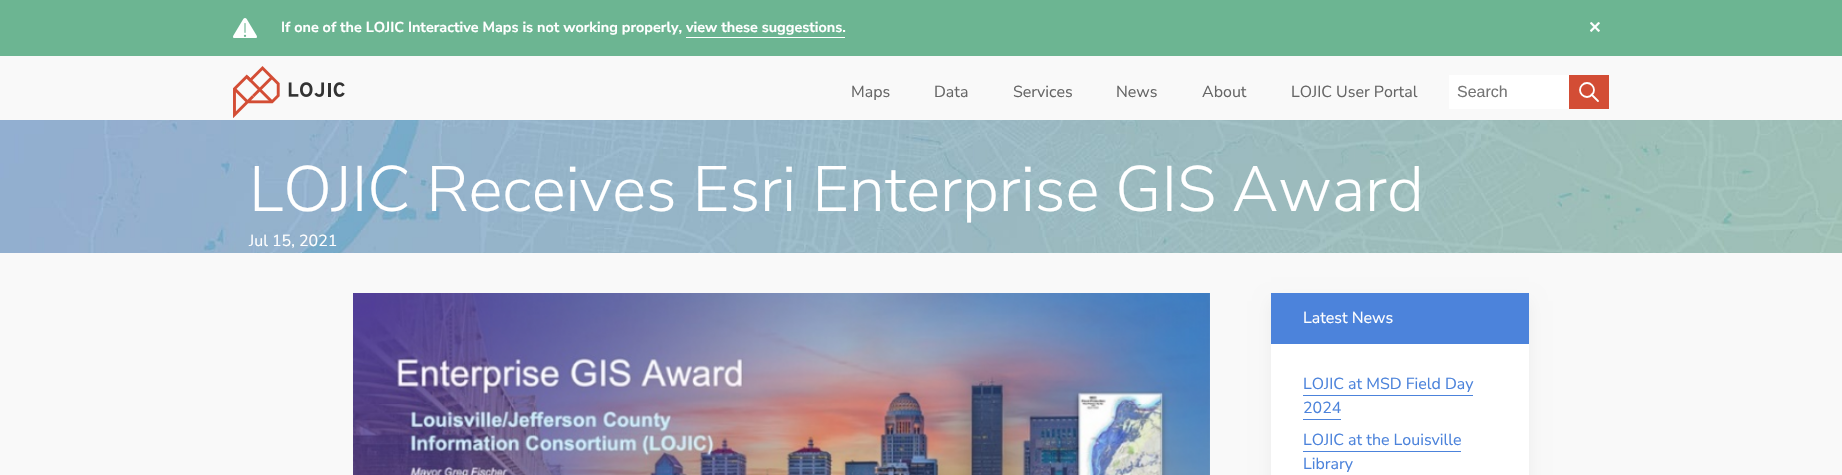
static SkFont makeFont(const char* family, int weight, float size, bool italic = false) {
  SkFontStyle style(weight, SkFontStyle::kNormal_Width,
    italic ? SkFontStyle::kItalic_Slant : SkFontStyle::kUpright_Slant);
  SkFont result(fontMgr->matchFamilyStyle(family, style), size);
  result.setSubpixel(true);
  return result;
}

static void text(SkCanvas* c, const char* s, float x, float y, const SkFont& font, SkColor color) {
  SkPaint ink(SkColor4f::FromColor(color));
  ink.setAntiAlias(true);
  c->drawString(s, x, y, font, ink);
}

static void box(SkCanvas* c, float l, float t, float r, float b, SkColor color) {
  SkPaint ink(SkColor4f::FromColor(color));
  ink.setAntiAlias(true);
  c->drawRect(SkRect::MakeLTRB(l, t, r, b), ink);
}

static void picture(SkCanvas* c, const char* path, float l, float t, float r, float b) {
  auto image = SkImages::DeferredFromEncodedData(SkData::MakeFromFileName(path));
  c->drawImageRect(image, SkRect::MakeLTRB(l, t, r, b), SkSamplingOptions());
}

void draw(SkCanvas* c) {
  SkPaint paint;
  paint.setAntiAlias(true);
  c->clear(0xfff9f9f9);
  box(c, 0, 0, 1842, 56, 0xff6cb592);
  picture(c, "img_01.png", 233, 18, 257, 38);
  SkFont face1 = makeFont("Nunito Sans", 700, 14.4f);
  text(c, "If one of the LOJIC Interactive Maps is not working properly,", 281, 32, face1, 0xffffffff);
  text(c, "view these suggestions.", 686, 32, face1, 0xffffffff);
  box(c, 686, 37, 845, 38, 0xffffffff);
  SkFont face2 = makeFont("DejaVu Sans", 700, 16);
  text(c, "✕", 1588, 33, face2, 0xffffffff);
  picture(c, "img_02.png", 233, 66, 345, 118);
  SkFont face3 = makeFont("Nunito Sans", 400, 16);
  text(c, "Maps", 851, 97, face3, 0xff666666);
  text(c, "Data", 934, 97, face3, 0xff666666);
  text(c, "Services", 1013, 97, face3, 0xff666666);
  text(c, "News", 1116, 97, face3, 0xff666666);
  text(c, "About", 1202, 97, face3, 0xff666666);
  text(c, "LOJIC User Portal", 1291, 97, face3, 0xff666666);
  box(c, 1449, 75, 1569, 109, 0xffffffff);
  SkFont face4 = makeFont("Liberation Sans", 400, 16);
  text(c, "Search", 1457, 97, face4, 0xff757575);
  box(c, 1569, 75, 1609, 109, 0xffd34d35);
  paint.setStyle(SkPaint::kStroke_Style);
  paint.setStrokeWidth(1.8f);
  paint.setColor(0xffffffff);
  c->drawCircle(1587, 90, 7, paint);
  paint.setStrokeCap(SkPaint::kRound_Cap);
  paint.setStrokeJoin(SkPaint::kRound_Join);
  c->drawPath(SkPathBuilder().moveTo(1591.5f, 94.5f).lineTo(1598, 101).detach(), paint);
  picture(c, "img_03.png", 0, 120, 1842, 253);
  SkFont face5 = makeFont("Nunito Sans", 300, 64);
  text(c, "LOJIC Receives Esri Enterprise GIS Award", 249, 211, face5, 0xffffffff);
  text(c, "Jul 15, 2021", 249, 246, face3, 0xffffffff);
  picture(c, "img_04.png", 353, 293, 1210, 475);
  paint.setStyle(SkPaint::kFill_Style);
  paint.setColor(0x0d000000);
  paint.setMaskFilter(SkMaskFilter::MakeBlur(kNormal_SkBlurStyle, 8));
  c->drawRect(SkRect::MakeLTRB(1271, 301, 1529, 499), paint);
  paint.setMaskFilter(nullptr);
  box(c, 1271, 344, 1529, 475, 0xffffffff);
  box(c, 1271, 293, 1529, 344, 0xff4c83db);
  text(c, "Latest News", 1303, 323, face3, 0xffffffff);
  text(c, "LOJIC at MSD Field Day", 1303, 389, face3, 0xff4c83db);
  box(c, 1303, 395, 1473, 396, 0xff4c83db);
  text(c, "2024", 1303, 413, face3, 0xff4c83db);
  box(c, 1303, 419, 1341, 420, 0xff4c83db);
  text(c, "LOJIC at the Louisville", 1303, 445, face3, 0xff4c83db);
  box(c, 1303, 451, 1461, 452, 0xff4c83db);
  text(c, "Library", 1303, 469, face3, 0xff4c83db);
}
